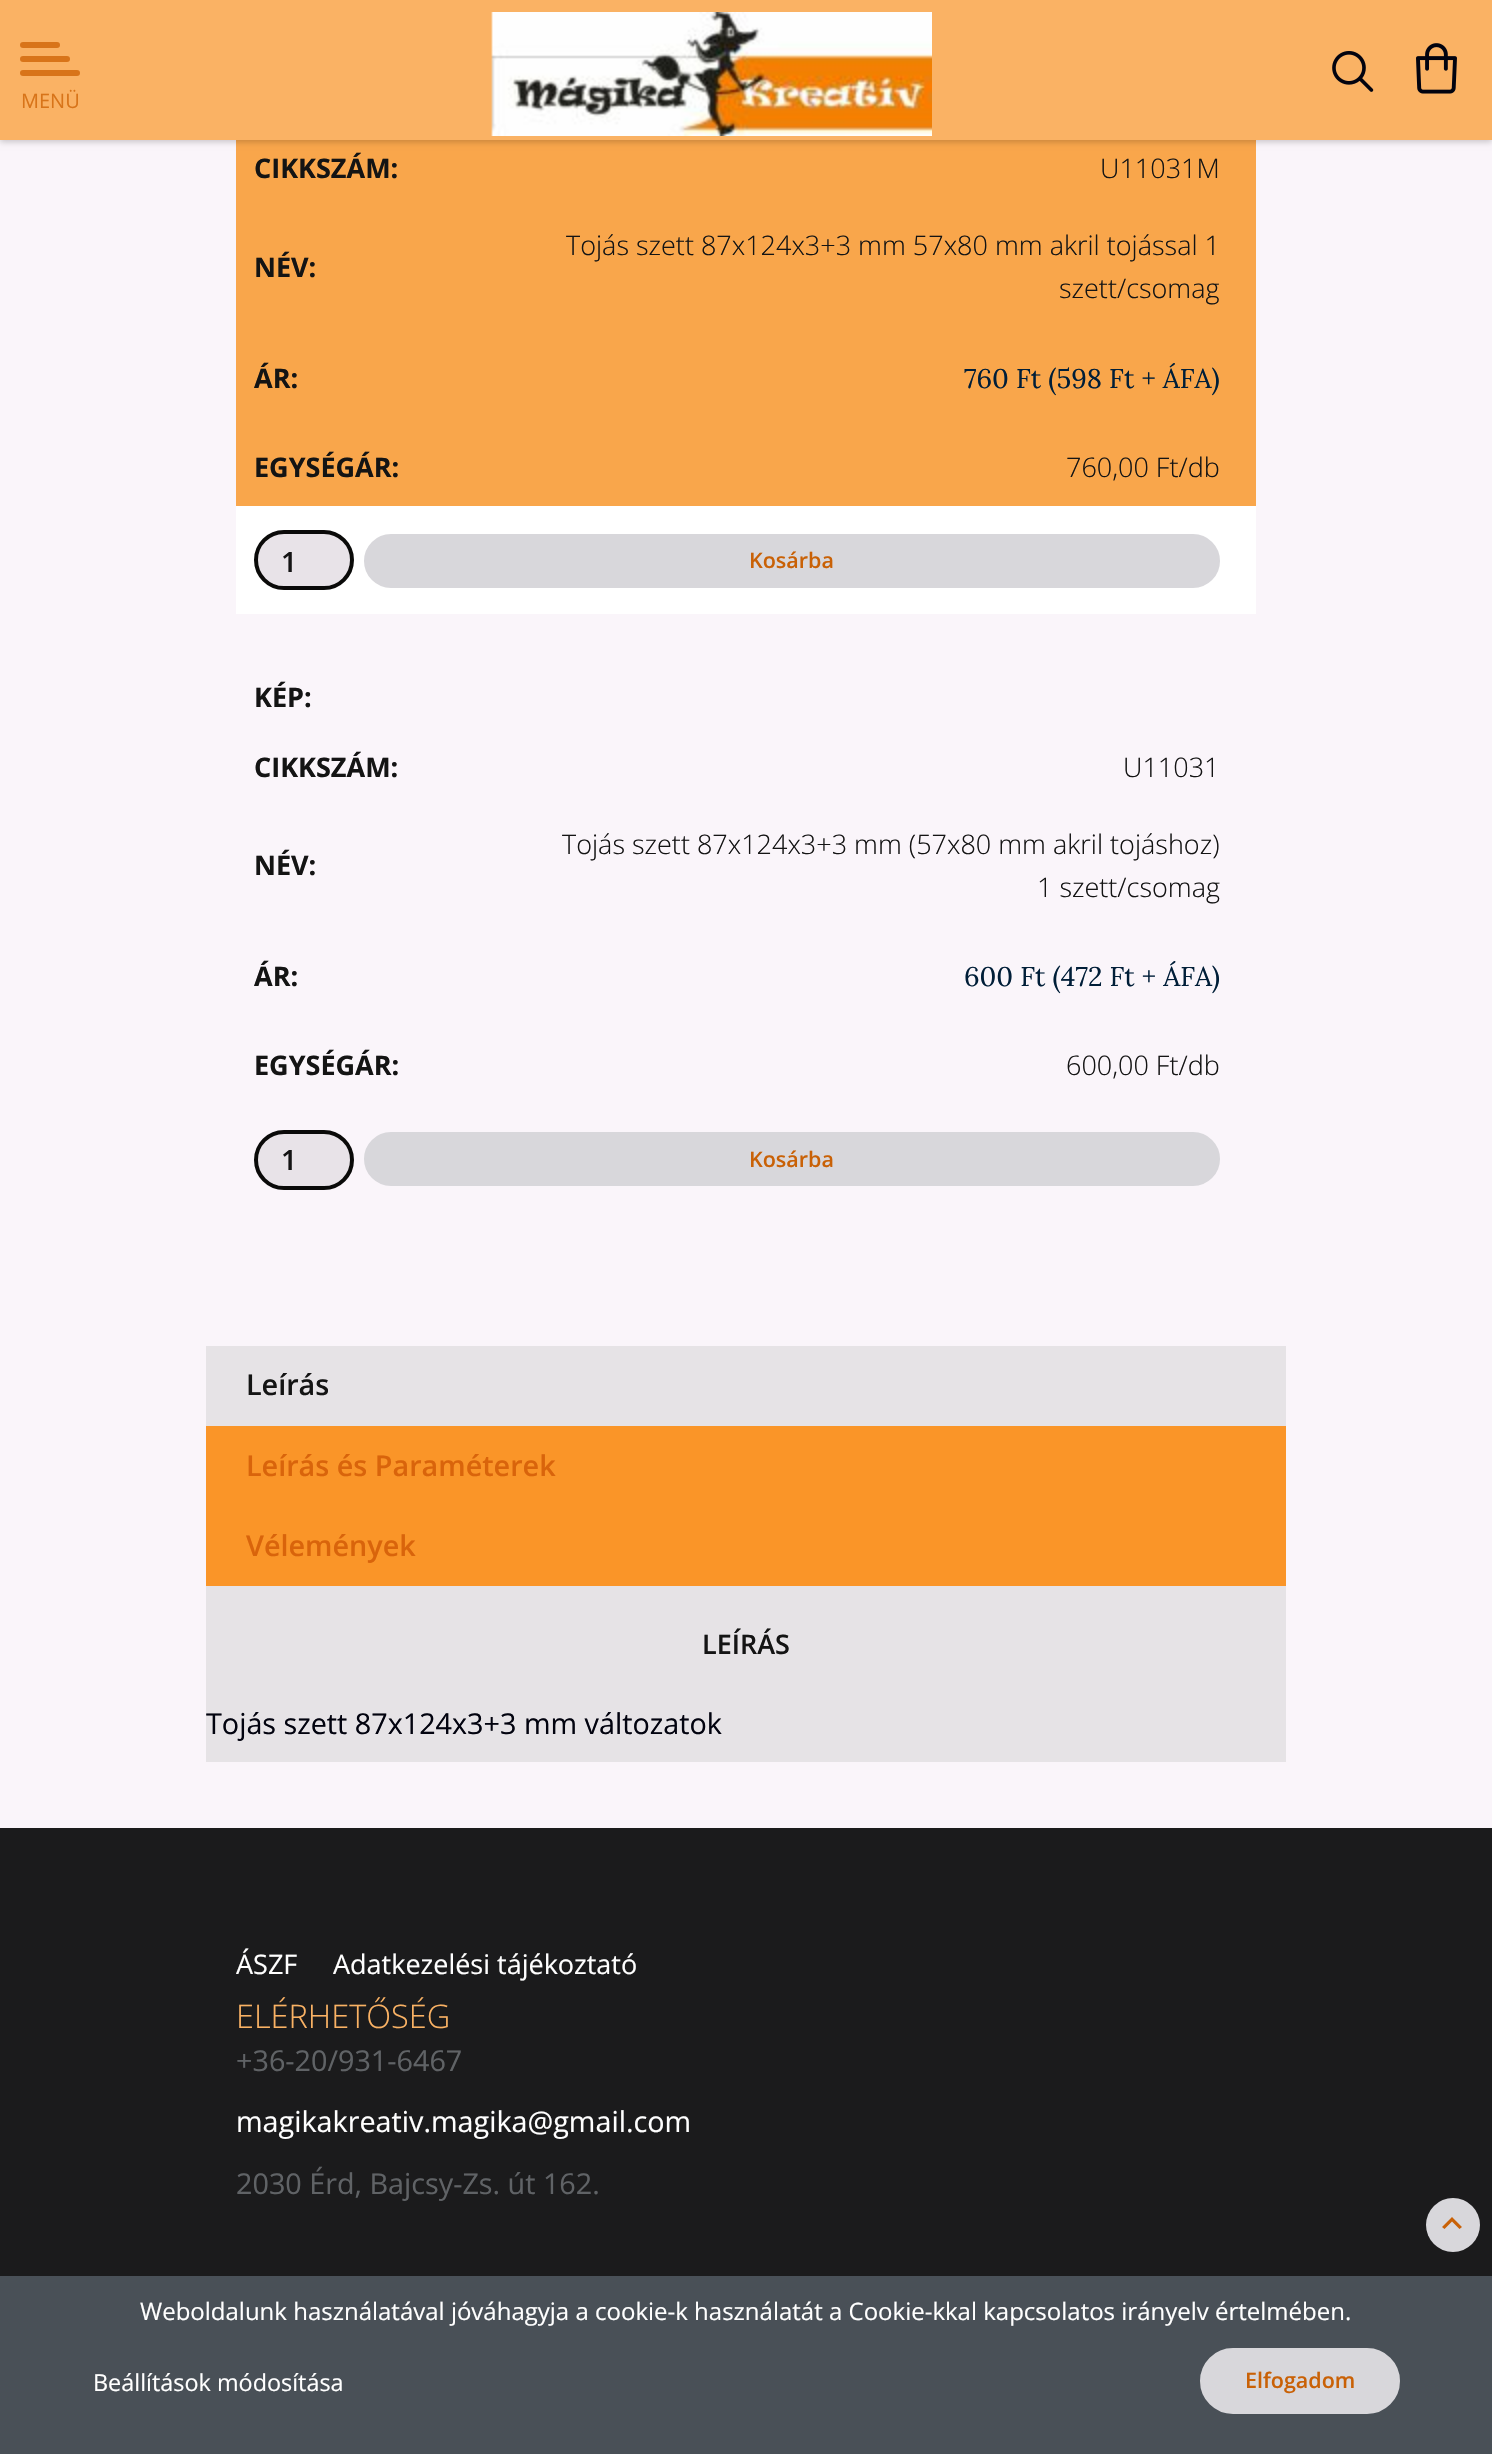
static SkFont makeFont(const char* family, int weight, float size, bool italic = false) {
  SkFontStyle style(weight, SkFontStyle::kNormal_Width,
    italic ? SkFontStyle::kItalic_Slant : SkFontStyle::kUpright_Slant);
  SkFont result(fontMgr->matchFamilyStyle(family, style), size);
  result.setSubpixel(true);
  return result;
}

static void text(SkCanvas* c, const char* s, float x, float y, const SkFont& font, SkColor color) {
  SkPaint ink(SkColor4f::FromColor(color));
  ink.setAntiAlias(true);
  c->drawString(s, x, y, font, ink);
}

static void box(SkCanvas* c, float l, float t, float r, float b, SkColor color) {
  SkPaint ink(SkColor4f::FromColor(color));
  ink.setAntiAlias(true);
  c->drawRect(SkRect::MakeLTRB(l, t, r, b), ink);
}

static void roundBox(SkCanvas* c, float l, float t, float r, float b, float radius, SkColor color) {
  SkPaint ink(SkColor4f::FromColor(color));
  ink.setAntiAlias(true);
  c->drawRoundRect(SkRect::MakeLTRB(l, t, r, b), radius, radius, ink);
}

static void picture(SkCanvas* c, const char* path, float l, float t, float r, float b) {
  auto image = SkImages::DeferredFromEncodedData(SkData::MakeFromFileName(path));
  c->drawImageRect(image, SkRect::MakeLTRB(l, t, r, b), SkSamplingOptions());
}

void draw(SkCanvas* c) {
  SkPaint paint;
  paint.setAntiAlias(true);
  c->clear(0xfffaf5fa);
  box(c, 236, 140, 1256, 506, 0xfff9a64b);
  paint.setColor(0x33000000);
  paint.setMaskFilter(SkMaskFilter::MakeBlur(kNormal_SkBlurStyle, 3));
  c->drawRect(SkRect::MakeLTRB(0, 2, 1492, 142), paint);
  paint.setMaskFilter(nullptr);
  box(c, 0, 0, 1492, 140, 0xfffab264);
  picture(c, "img_01.png", 491, 12, 932, 136);
  picture(c, "img_02.png", 1332, 51, 1374, 92);
  picture(c, "img_03.png", 1416, 43, 1457, 94);
  roundBox(c, 20, 70, 80, 76, 3, 0xffd87419);
  roundBox(c, 20, 42, 60, 48, 3, 0xffd87419);
  roundBox(c, 20, 56, 70, 62, 3, 0xffd87419);
  SkFont face1 = makeFont("Open Sans", 400, 20);
  text(c, "MENÜ", 21, 108, face1, 0xffd87419);
  SkFont face2 = makeFont("Open Sans", 700, 27);
  text(c, "CIKKSZÁM:", 254, 178, face2, 0xff141414);
  SkFont face3 = makeFont("Open Sans", 300, 27);
  text(c, "U11031M", 1100, 178, face3, 0xff141414);
  text(c, "NÉV:", 254, 277, face2, 0xff141414);
  text(c, "Tojás szett 87x124x3+3 mm 57x80 mm akril tojással 1", 566, 255, face3, 0xff141414);
  text(c, "szett/csomag", 1059, 298, face3, 0xff141414);
  text(c, "ÁR:", 254, 388, face2, 0xff141414);
  SkFont face4 = makeFont("Lora", 400, 27);
  text(c, "760 Ft (598 Ft + ÁFA)", 964, 388, face4, 0xff001e38);
  text(c, "EGYSÉGÁR:", 254, 477, face2, 0xff141414);
  text(c, "760,00 Ft/db", 1066, 477, face3, 0xff141414);
  box(c, 236, 506, 1256, 614, 0xffffffff);
  paint.setColor(0xffe8e3e8);
  c->drawRoundRect(SkRect::MakeLTRB(256, 532, 352, 588), 28, 28, paint);
  paint.setStyle(SkPaint::kStroke_Style);
  paint.setStrokeWidth(4);
  paint.setColor(0xff0a0a09);
  c->drawRoundRect(SkRect::MakeLTRB(256, 532, 352, 588), 28, 28, paint);
  SkFont face5 = makeFont("Open Sans", 600, 28);
  text(c, "1", 281, 572, face5, 0xff141414);
  paint.setStyle(SkPaint::kFill_Style);
  paint.setColor(0xffd8d7db);
  c->drawRoundRect(SkRect::MakeLTRB(366, 536, 1218, 586), 25, 25, paint);
  paint.setStyle(SkPaint::kStroke_Style);
  c->drawRoundRect(SkRect::MakeLTRB(366, 536, 1218, 586), 25, 25, paint);
  SkFont face6 = makeFont("Open Sans", 600, 21.5f);
  text(c, "Kosárba", 749, 568, face6, 0xffc96106);
  text(c, "KÉP:", 254, 707, face2, 0xff141414);
  text(c, "CIKKSZÁM:", 254, 777, face2, 0xff141414);
  text(c, "U11031", 1123, 777, face3, 0xff141414);
  text(c, "NÉV:", 254, 875, face2, 0xff141414);
  text(c, "Tojás szett 87x124x3+3 mm (57x80 mm akril tojáshoz)", 562, 854, face3, 0xff141414);
  text(c, "1 szett/csomag", 1037, 897, face3, 0xff141414);
  text(c, "ÁR:", 254, 986, face2, 0xff141414);
  text(c, "600 Ft (472 Ft + ÁFA)", 964, 986, face4, 0xff001e38);
  text(c, "EGYSÉGÁR:", 254, 1075, face2, 0xff141414);
  text(c, "600,00 Ft/db", 1066, 1075, face3, 0xff141414);
  paint.setStyle(SkPaint::kFill_Style);
  paint.setColor(0xffe8e3e8);
  c->drawRoundRect(SkRect::MakeLTRB(256, 1132, 352, 1188), 28, 28, paint);
  paint.setStyle(SkPaint::kStroke_Style);
  paint.setColor(0xff0a0a09);
  c->drawRoundRect(SkRect::MakeLTRB(256, 1132, 352, 1188), 28, 28, paint);
  text(c, "1", 281, 1170, face5, 0xff141414);
  paint.setStyle(SkPaint::kFill_Style);
  paint.setColor(0xffd8d7db);
  c->drawRoundRect(SkRect::MakeLTRB(366, 1134, 1218, 1184), 25, 25, paint);
  paint.setStyle(SkPaint::kStroke_Style);
  c->drawRoundRect(SkRect::MakeLTRB(366, 1134, 1218, 1184), 25, 25, paint);
  text(c, "Kosárba", 749, 1167, face6, 0xffc96106);
  box(c, 206, 1426, 1286, 1586, 0xfffa9528);
  box(c, 206, 1346, 1286, 1426, 0xffe6e3e6);
  SkFont face7 = makeFont("Open Sans", 600, 28.75f);
  text(c, "Leírás", 246, 1395, face7, 0xff141414);
  text(c, "Leírás és Paraméterek", 246, 1476, face7, 0xffd9640b);
  text(c, "Vélemények", 246, 1556, face7, 0xffd9640b);
  box(c, 206, 1586, 1286, 1762, 0xffe6e3e6);
  SkFont face8 = makeFont("Open Sans", 600, 27);
  text(c, "LEÍRÁS", 702, 1654, face8, 0xff141414);
  SkFont face9 = makeFont("Open Sans", 400, 28.75f);
  text(c, "Tojás szett 87x124x3+3 mm változatok", 206, 1734, face9, 0xff02030f);
  box(c, 0, 1828, 1492, 2276, 0xff1b1b1c);
  SkFont face10 = makeFont("Open Sans", 400, 27);
  text(c, "ÁSZF", 236, 1974, face10, 0xffffffff);
  text(c, "Adatkezelési tájékoztató", 333, 1974, face10, 0xffffffff);
  SkFont face11 = makeFont("Open Sans", 300, 32.5f);
  text(c, "ELÉRHETŐSÉG", 236, 2028, face11, 0xfffab264);
  text(c, "+36-20/931-6467", 236, 2071, face9, 0xff606366);
  text(c, "magikakreativ.magika@gmail.com", 236, 2132, face9, 0xffffffff);
  text(c, "2030 Érd, Bajcsy-Zs. út 162.", 236, 2194, face9, 0xff606366);
  paint.setStyle(SkPaint::kFill_Style);
  c->drawCircle(1453, 2225, 27, paint);
  paint.setColor(0xffc96106);
  c->drawPath(SkPathBuilder().moveTo(1442, 2227).lineTo(1444.5f, 2229).lineTo(1452, 2221.5f).lineTo(1459.5f, 2229).lineTo(1462, 2227).lineTo(1452, 2217).close().detach(), paint);
  box(c, 0, 2276, 1492, 2454, 0xff495057);
  SkFont face12 = makeFont("Open Sans", 400, 24);
  text(c, "Weboldalunk használatával jóváhagyja a cookie-k használatát a Cookie-kkal kapcsolatos irányelv értelmében.", 140, 2320, face12, 0xffffffff);
  SkFont face13 = makeFont("Open Sans", 400, 23.4f);
  text(c, "Beállítások módosítása", 93, 2391, face13, 0xffffffff);
  paint.setColor(0xffd8d7db);
  c->drawRoundRect(SkRect::MakeLTRB(1202, 2350, 1398, 2412), 31, 31, paint);
  paint.setStyle(SkPaint::kStroke_Style);
  c->drawRoundRect(SkRect::MakeLTRB(1202, 2350, 1398, 2412), 31, 31, paint);
  text(c, "Elfogadom", 1245, 2388, face6, 0xffc96106);
}
